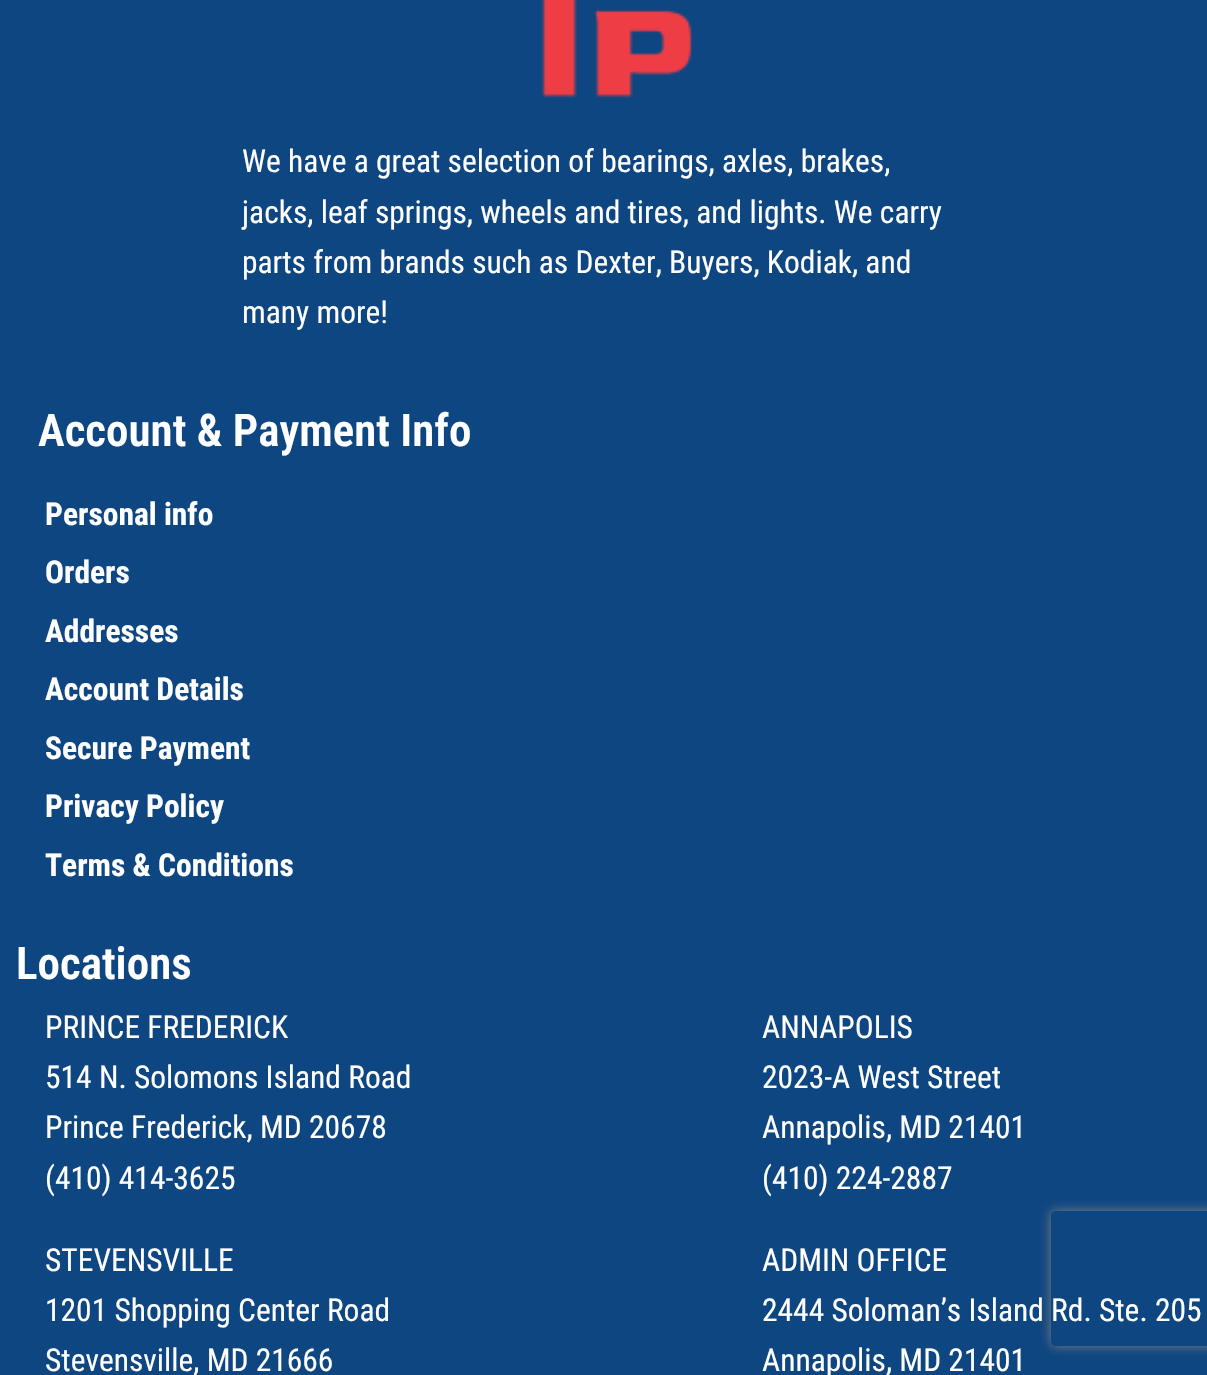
static SkFont makeFont(const char* family, int weight, float size, bool italic = false) {
  SkFontStyle style(weight, SkFontStyle::kNormal_Width,
    italic ? SkFontStyle::kItalic_Slant : SkFontStyle::kUpright_Slant);
  SkFont result(fontMgr->matchFamilyStyle(family, style), size);
  result.setSubpixel(true);
  return result;
}

static void text(SkCanvas* c, const char* s, float x, float y, const SkFont& font, SkColor color) {
  SkPaint ink(SkColor4f::FromColor(color));
  ink.setAntiAlias(true);
  c->drawString(s, x, y, font, ink);
}

static void picture(SkCanvas* c, const char* path, float l, float t, float r, float b) {
  auto image = SkImages::DeferredFromEncodedData(SkData::MakeFromFileName(path));
  c->drawImageRect(image, SkRect::MakeLTRB(l, t, r, b), SkSamplingOptions());
}

void draw(SkCanvas* c) {
  SkPaint paint;
  paint.setAntiAlias(true);
  c->clear(0xff0e4681);
  picture(c, "img_01.png", 541, 0, 693, 98);
  SkFont face1 = makeFont("Roboto Condensed", 400, 31.5f);
  text(c, "We have a great selection of bearings, axles, brakes,", 242, 172, face1, 0xffffffff);
  text(c, "jacks, leaf springs, wheels and tires, and lights. We carry", 242, 223, face1, 0xffffffff);
  text(c, "parts from brands such as Dexter, Buyers, Kodiak, and", 242, 273, face1, 0xffffffff);
  text(c, "many more!", 242, 323, face1, 0xffffffff);
  SkFont face2 = makeFont("Roboto Condensed", 600, 45);
  text(c, "Account & Payment Info", 38, 446, face2, 0xffffffff);
  SkFont face3 = makeFont("Roboto Condensed", 700, 31.5f);
  text(c, "Personal info", 45, 525, face3, 0xffffffff);
  text(c, "Orders", 45, 583, face3, 0xffffffff);
  text(c, "Addresses", 45, 642, face3, 0xffffffff);
  text(c, "Account Details", 45, 700, face3, 0xffffffff);
  text(c, "Secure Payment", 45, 759, face3, 0xffffffff);
  text(c, "Privacy Policy", 45, 817, face3, 0xffffffff);
  text(c, "Terms & Conditions", 45, 876, face3, 0xffffffff);
  text(c, "Locations", 16, 979, face2, 0xffffffff);
  text(c, "PRINCE FREDERICK", 45, 1038, face1, 0xffffffff);
  text(c, "514 N. Solomons Island Road", 45, 1088, face1, 0xffffffff);
  text(c, "Prince Frederick, MD 20678", 45, 1138, face1, 0xffffffff);
  text(c, "(410) 414-3625", 45, 1189, face1, 0xffffffff);
  text(c, "ANNAPOLIS", 762, 1038, face1, 0xffffffff);
  text(c, "2023-A West Street", 762, 1088, face1, 0xffffffff);
  text(c, "Annapolis, MD 21401", 762, 1138, face1, 0xffffffff);
  text(c, "(410) 224-2887", 762, 1189, face1, 0xffffffff);
  text(c, "STEVENSVILLE", 45, 1271, face1, 0xffffffff);
  text(c, "1201 Shopping Center Road", 45, 1321, face1, 0xffffffff);
  text(c, "Stevensville, MD 21666", 45, 1371, face1, 0xffffffff);
  text(c, "ADMIN OFFICE", 762, 1271, face1, 0xffffffff);
  text(c, "2444 Soloman’s Island Rd. Ste. 205", 762, 1321, face1, 0xffffffff);
  text(c, "Annapolis, MD 21401", 762, 1371, face1, 0xffffffff);
  c->save();
  c->clipPath(SkPathBuilder(SkPathFillType::kEvenOdd).moveTo(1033, 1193).lineTo(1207, 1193).lineTo(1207, 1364).lineTo(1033, 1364).close().moveTo(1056, 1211).lineTo(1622, 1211).cubicTo(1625, 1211, 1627, 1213, 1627, 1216).lineTo(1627, 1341).cubicTo(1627, 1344, 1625, 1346, 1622, 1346).lineTo(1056, 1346).cubicTo(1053, 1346, 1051, 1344, 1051, 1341).lineTo(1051, 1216).cubicTo(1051, 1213, 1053, 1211, 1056, 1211).close().detach(), true);
  paint.setColor(0xff808080);
  paint.setMaskFilter(SkMaskFilter::MakeBlur(kNormal_SkBlurStyle, 5.5f));
  c->drawRoundRect(SkRect::MakeLTRB(1051, 1211, 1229, 1346), 5, 5, paint);
  paint.setMaskFilter(nullptr);
  c->restore();
}
